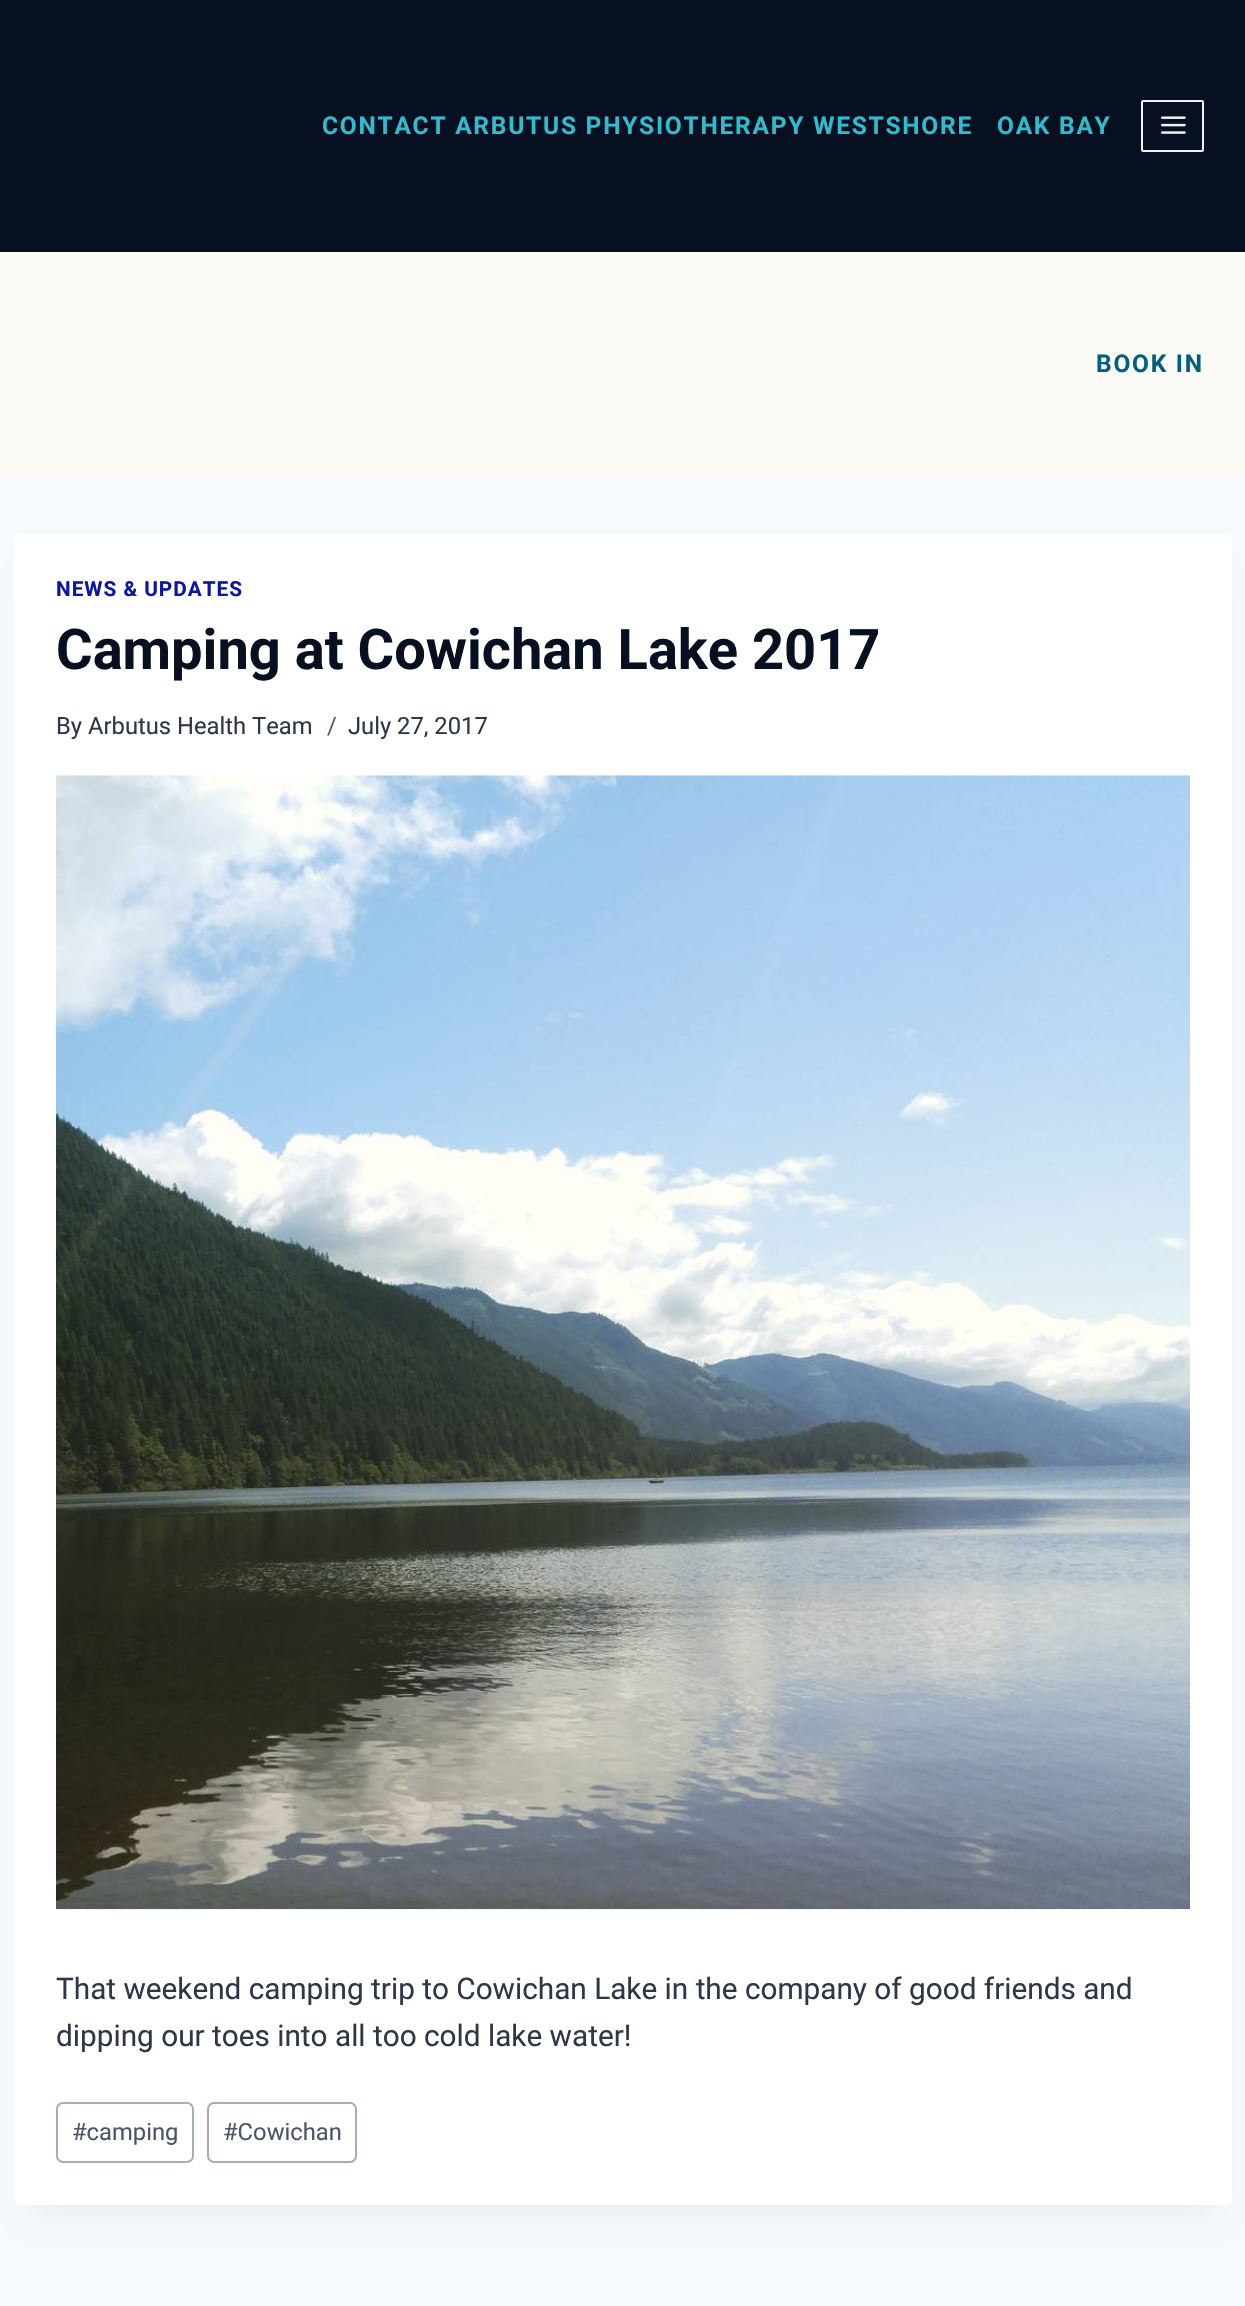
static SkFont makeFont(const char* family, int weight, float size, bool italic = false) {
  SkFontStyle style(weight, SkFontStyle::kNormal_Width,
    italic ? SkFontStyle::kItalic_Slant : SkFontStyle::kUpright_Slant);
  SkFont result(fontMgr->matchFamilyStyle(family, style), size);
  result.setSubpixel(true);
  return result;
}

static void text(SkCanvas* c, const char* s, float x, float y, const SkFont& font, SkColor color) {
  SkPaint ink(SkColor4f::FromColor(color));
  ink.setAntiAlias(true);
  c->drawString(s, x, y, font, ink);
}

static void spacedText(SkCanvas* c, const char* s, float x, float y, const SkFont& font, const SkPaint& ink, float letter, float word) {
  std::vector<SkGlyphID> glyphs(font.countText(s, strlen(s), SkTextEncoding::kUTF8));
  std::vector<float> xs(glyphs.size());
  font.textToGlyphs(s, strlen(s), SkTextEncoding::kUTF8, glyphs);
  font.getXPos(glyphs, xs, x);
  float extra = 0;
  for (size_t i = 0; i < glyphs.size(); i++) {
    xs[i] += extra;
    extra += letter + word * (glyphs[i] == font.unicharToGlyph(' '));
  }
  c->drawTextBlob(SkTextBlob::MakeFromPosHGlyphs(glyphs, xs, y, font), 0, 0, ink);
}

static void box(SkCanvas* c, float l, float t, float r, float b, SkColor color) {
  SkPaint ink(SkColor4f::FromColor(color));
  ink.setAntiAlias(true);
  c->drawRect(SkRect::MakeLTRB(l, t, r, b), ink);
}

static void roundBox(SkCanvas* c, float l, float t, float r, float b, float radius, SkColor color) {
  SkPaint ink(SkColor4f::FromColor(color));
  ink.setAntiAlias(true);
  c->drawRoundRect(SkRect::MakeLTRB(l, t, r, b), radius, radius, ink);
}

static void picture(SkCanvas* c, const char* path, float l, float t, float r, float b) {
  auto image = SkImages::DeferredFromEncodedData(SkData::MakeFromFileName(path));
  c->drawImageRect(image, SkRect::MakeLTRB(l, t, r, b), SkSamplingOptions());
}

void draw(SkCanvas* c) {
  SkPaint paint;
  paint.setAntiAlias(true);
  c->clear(0xfff7fafc);
  box(c, 0, 0, 1245, 252, 0xff071020);
  SkFont face1 = makeFont("Roboto", 700, 24.5f);
  paint.setColor(0xff31bcce);
  spacedText(c, "CONTACT ARBUTUS PHYSIOTHERAPY WESTSHORE", 322, 134, face1, paint, 1.75f, 0);
  spacedText(c, "OAK BAY", 997, 134, face1, paint, 1.75f, 0);
  paint.setStyle(SkPaint::kStroke_Style);
  paint.setStrokeWidth(2);
  paint.setColor(0xffedf2f7);
  c->drawRoundRect(SkRect::MakeLTRB(1142, 101, 1203, 151), 1, 1, paint);
  picture(c, "img_01.png", 1161, 116, 1186, 134);
  box(c, 0, 252, 1245, 478, 0xfffcfaf7);
  paint.setStyle(SkPaint::kFill_Style);
  paint.setColor(0xff016080);
  spacedText(c, "BOOK IN", 1096, 372, face1, paint, 1.75f, 0);
  paint.setColor(0x0d000000);
  paint.setMaskFilter(SkMaskFilter::MakeBlur(kNormal_SkBlurStyle, 13));
  c->drawRect(SkRect::MakeLTRB(32, 578, 1215, 2214), paint);
  paint.setMaskFilter(nullptr);
  roundBox(c, 14, 534, 1232, 2205, 7, 0xffffffff);
  SkFont face2 = makeFont("Roboto", 700, 20.75f);
  paint.setColor(0xff0d15a7);
  spacedText(c, "NEWS & UPDATES", 56, 596, face2, paint, 1, 0);
  SkFont face3 = makeFont("Roboto", 700, 56);
  text(c, "Camping at Cowichan Lake 2017", 56, 669, face3, 0xff071020);
  SkFont face4 = makeFont("Roboto", 400, 23.75f);
  text(c, "By", 56, 734, face4, 0xff2d3748);
  text(c, "Arbutus Health Team", 88, 734, face4, 0xff2d3748);
  text(c, "/", 327, 734, face4, 0xff575f6d);
  text(c, "July 27, 2017", 348, 734, face4, 0xff2d3748);
  picture(c, "img_02.png", 56, 775, 1190, 1910);
  SkFont face5 = makeFont("Roboto", 400, 29.75f);
  text(c, "That weekend camping trip to Cowichan Lake in the company of good friends and", 56, 1999, face5, 0xff2d3748);
  text(c, "dipping our toes into all too cold lake water!", 56, 2046, face5, 0xff2d3748);
  paint.setStyle(SkPaint::kStroke_Style);
  paint.setColor(0xffa0aec0);
  c->drawRoundRect(SkRect::MakeLTRB(57, 2103, 193, 2162), 6, 6, paint);
  text(c, "#camping", 72, 2140, face4, 0xff4a5568);
  c->drawRoundRect(SkRect::MakeLTRB(208, 2103, 356, 2162), 6, 6, paint);
  text(c, "#Cowichan", 223, 2140, face4, 0xff4a5568);
}
